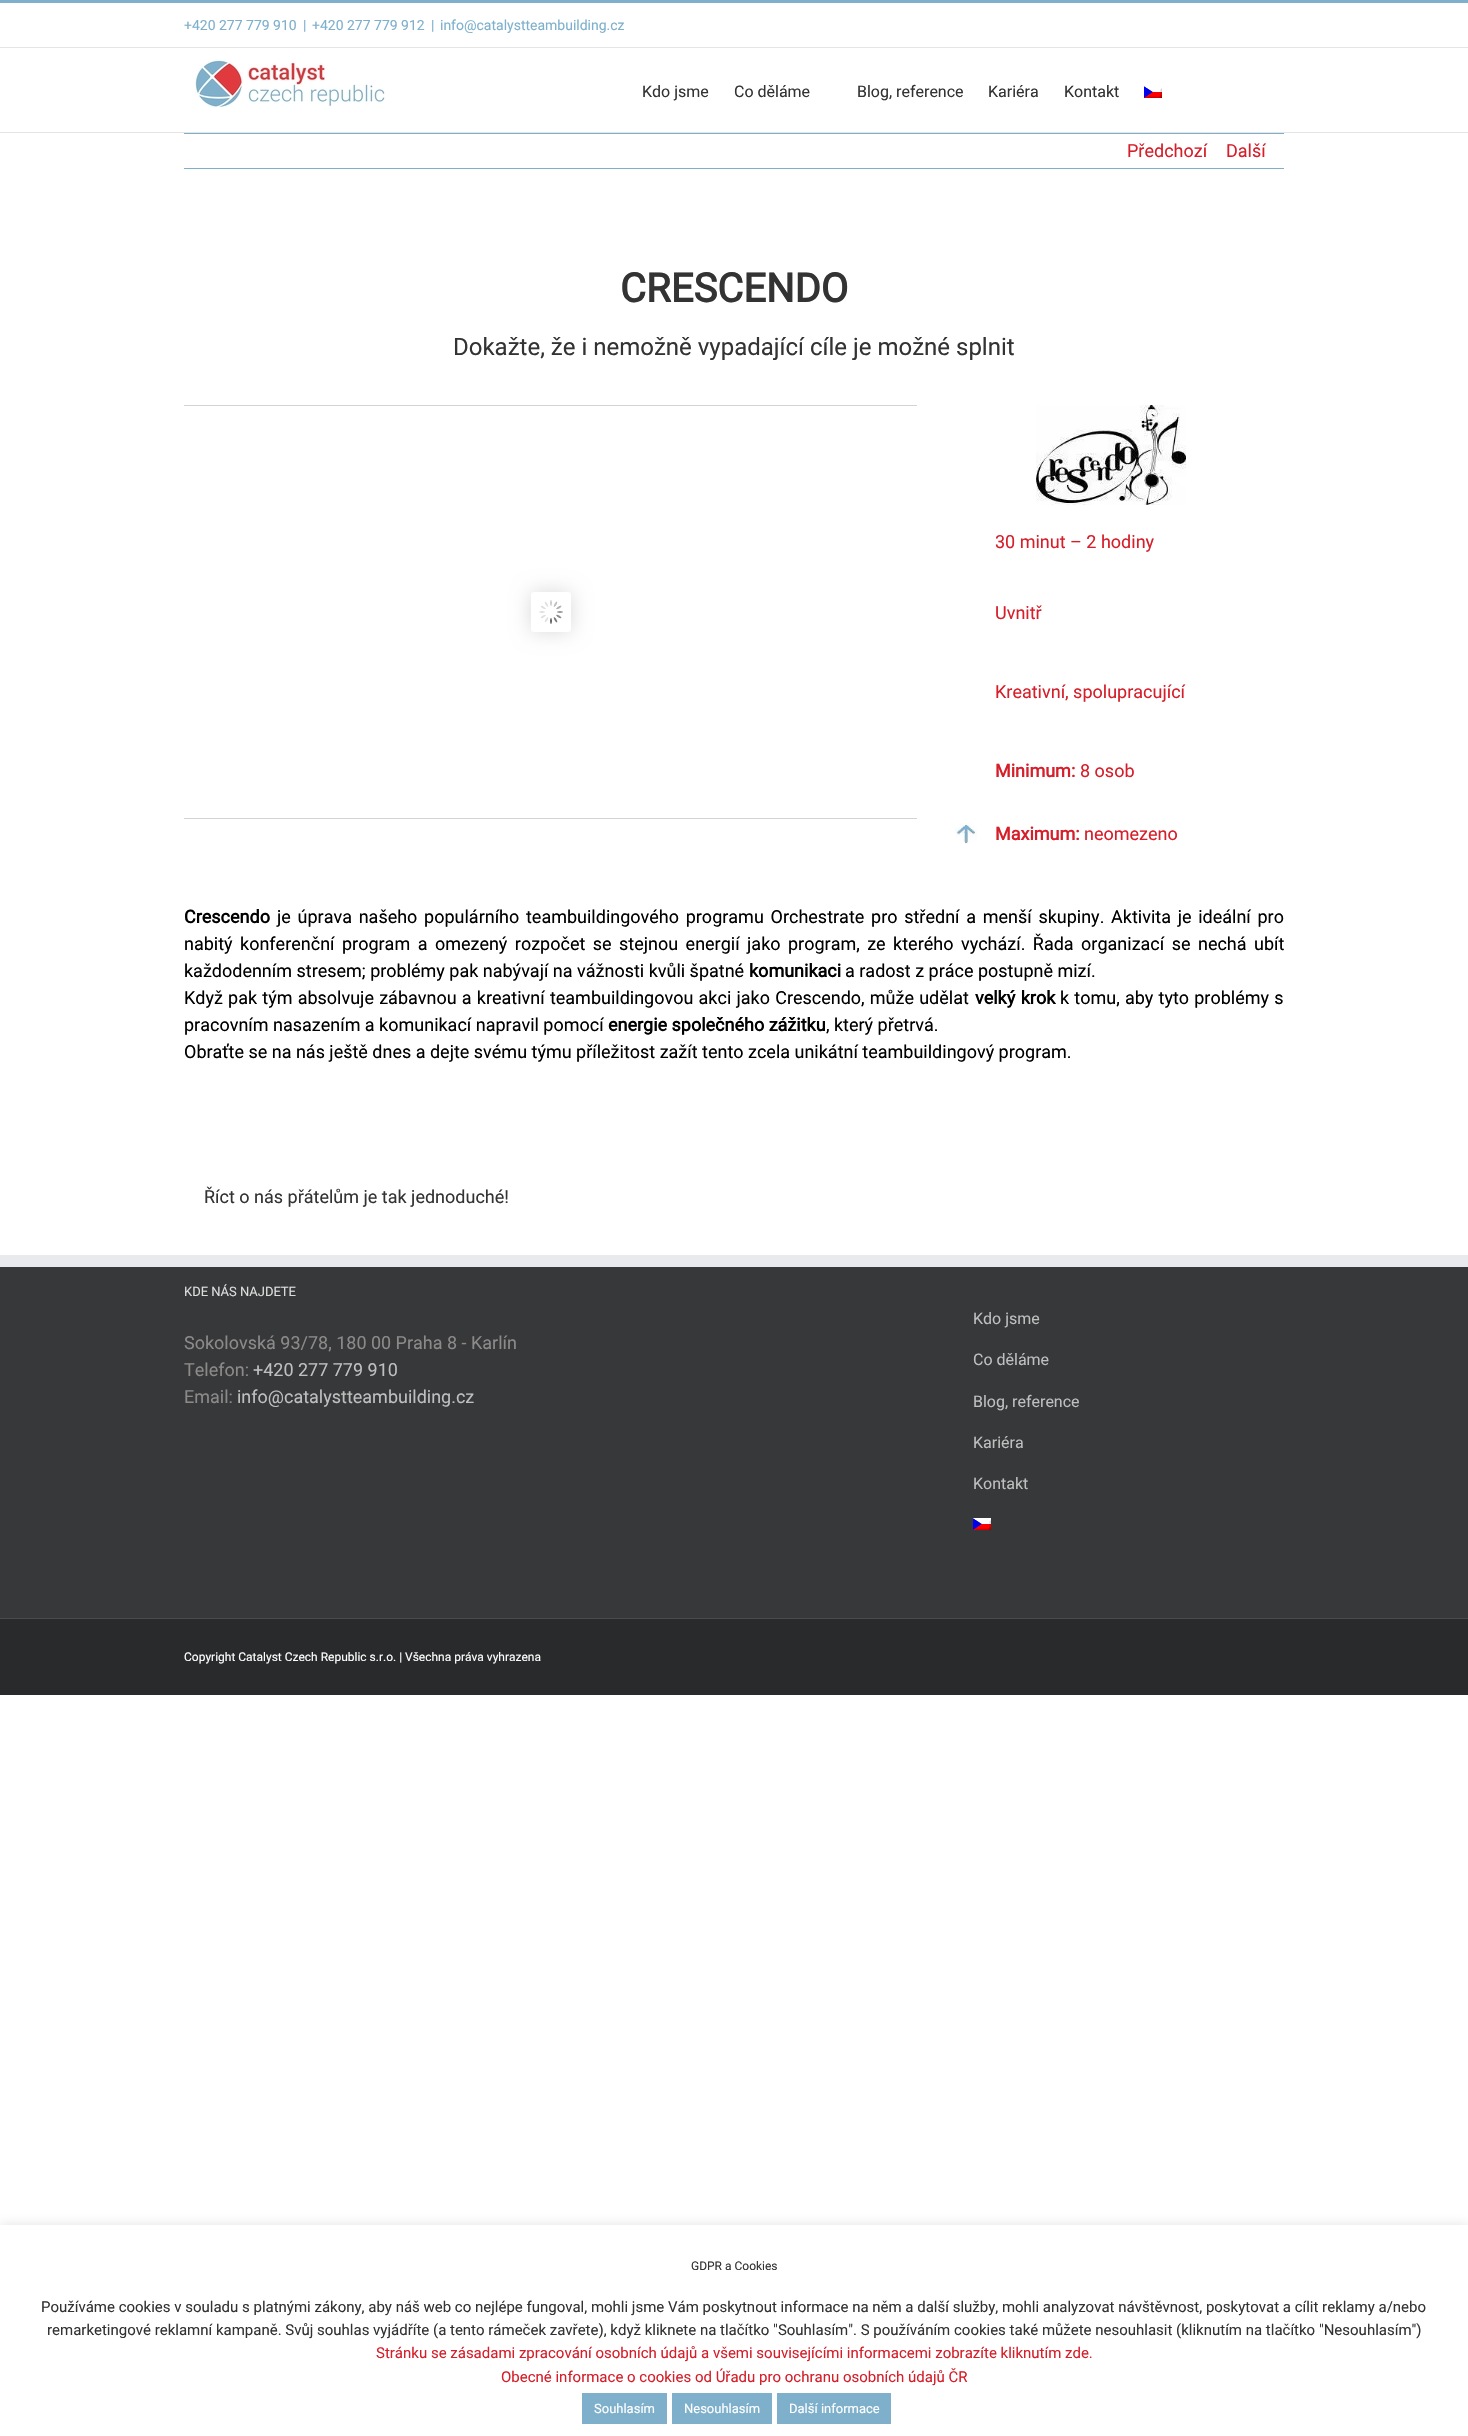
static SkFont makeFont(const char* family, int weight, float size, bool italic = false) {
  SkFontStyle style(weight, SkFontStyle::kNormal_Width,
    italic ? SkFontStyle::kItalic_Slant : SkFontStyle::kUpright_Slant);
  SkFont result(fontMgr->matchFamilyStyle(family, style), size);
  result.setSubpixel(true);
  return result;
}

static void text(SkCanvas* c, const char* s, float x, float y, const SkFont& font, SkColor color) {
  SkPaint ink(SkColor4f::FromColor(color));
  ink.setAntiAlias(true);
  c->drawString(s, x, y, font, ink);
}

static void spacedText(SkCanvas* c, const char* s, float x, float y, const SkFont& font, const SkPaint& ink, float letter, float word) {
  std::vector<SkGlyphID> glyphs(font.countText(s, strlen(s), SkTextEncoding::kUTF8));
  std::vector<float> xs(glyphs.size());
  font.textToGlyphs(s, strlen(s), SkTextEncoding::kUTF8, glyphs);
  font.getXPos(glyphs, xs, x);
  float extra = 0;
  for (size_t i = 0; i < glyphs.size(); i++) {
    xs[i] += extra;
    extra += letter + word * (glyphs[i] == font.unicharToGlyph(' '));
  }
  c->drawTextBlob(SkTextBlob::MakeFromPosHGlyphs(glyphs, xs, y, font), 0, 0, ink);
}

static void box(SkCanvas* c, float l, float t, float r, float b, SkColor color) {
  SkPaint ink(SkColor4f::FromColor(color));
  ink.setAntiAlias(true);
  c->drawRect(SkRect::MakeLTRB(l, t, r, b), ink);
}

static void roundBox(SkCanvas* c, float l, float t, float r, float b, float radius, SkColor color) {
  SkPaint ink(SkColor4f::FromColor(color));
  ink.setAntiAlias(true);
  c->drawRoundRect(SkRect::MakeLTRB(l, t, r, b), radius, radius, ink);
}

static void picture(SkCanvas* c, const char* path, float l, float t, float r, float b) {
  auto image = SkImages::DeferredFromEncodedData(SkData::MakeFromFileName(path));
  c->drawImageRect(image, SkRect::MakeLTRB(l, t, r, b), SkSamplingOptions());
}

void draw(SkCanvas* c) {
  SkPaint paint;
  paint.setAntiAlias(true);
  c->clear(0xffffffff);
  box(c, 0, 0, 1468, 3, 0xff7eb0cc);
  box(c, 0, 47, 1468, 48, 0xffe5e5e5);
  SkFont face1 = makeFont("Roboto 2", 400, 14);
  text(c, "+420 277 779 910", 184, 30, face1, 0xff7eb0cc);
  text(c, "|", 303, 30, face1, 0xff7eb0cc);
  text(c, "+420 277 779 912", 312, 30, face1, 0xff7eb0cc);
  text(c, "|", 431, 30, face1, 0xff7eb0cc);
  text(c, "info@catalystteambuilding.cz", 440, 30, face1, 0xff7eb0cc);
  box(c, 0, 132, 1468, 133, 0xffe5e5e5);
  picture(c, "img_01.png", 195, 59, 385, 108);
  SkFont face2 = makeFont("Roboto 2", 400, 16);
  text(c, "Kdo jsme", 642, 97, face2, 0xff333333);
  text(c, "Co děláme", 734, 97, face2, 0xff333333);
  text(c, "Blog, reference", 857, 97, face2, 0xff333333);
  text(c, "Kariéra", 988, 97, face2, 0xff333333);
  text(c, "Kontakt", 1064, 97, face2, 0xff333333);
  picture(c, "img_02.png", 1144, 86, 1162, 98);
  box(c, 184, 133, 1284, 134, 0xff7eb0cc);
  box(c, 184, 168, 1284, 169, 0xff7eb0cc);
  SkFont face3 = makeFont("Roboto 2", 400, 18);
  text(c, "Předchozí", 1127, 157, face3, 0xffd61f2a);
  text(c, "Další", 1226, 157, face3, 0xffd61f2a);
  SkFont face4 = makeFont("Roboto", 700, 40);
  text(c, "CRESCENDO", 620, 302, face4, 0xff333333);
  SkFont face5 = makeFont("Roboto", 400, 24);
  text(c, "Dokažte, že i nemožně vypadající cíle je možné splnit", 453, 355, face5, 0xff333333);
  box(c, 184, 405, 917, 406, 0xffd2d3d4);
  box(c, 184, 818, 917, 819, 0xffd2d3d4);
  paint.setColor(0x26000000);
  paint.setMaskFilter(SkMaskFilter::MakeBlur(kNormal_SkBlurStyle, 10));
  c->drawRoundRect(SkRect::MakeLTRB(531, 592, 571, 632), 3, 3, paint);
  paint.setMaskFilter(nullptr);
  roundBox(c, 531, 592, 571, 632, 3, 0xffffffff);
  picture(c, "img_03.png", 539, 600, 563, 624);
  picture(c, "img_04.png", 1036, 405, 1186, 505);
  SkFont face6 = makeFont("Roboto", 400, 18);
  text(c, "30 minut – 2 hodiny", 995, 548, face6, 0xffd61f2a);
  text(c, "Uvnitř", 995, 619, face6, 0xffd61f2a);
  text(c, "Kreativní, spolupracující", 995, 698, face6, 0xffd61f2a);
  SkFont face7 = makeFont("Roboto", 700, 18);
  text(c, "Minimum:", 995, 777, face7, 0xffd61f2a);
  text(c, "8 osob", 1080, 777, face6, 0xffd61f2a);
  picture(c, "img_05.png", 955, 823, 977, 844);
  text(c, "Maximum:", 995, 840, face7, 0xffd61f2a);
  text(c, "neomezeno", 1084, 840, face6, 0xffd61f2a);
  SkFont face8 = makeFont("Roboto 2", 700, 18);
  text(c, "Crescendo", 184, 923, face8, 0xff000000);
  paint.setColor(0xff000000);
  spacedText(c, "je úprava našeho populárního teambuildingového programu Orchestrate pro střední a menší skupiny. Aktivita je ideální pro", 277, 923, face3, paint, 0, 2.25f);
  spacedText(c, "nabitý konferenční program a omezený rozpočet se stejnou energií jako program, ze kterého vychází. Řada organizací se nechá ubít", 184, 950, face3, paint, 0, 3);
  text(c, "každodenním stresem; problémy pak nabývají na vážnosti kvůli špatné", 184, 977, face3, 0xff000000);
  text(c, "komunikaci", 749, 977, face8, 0xff000000);
  text(c, "a radost z práce postupně mizí.", 845, 977, face3, 0xff000000);
  spacedText(c, "Když pak tým absolvuje zábavnou a kreativní teambuildingovou akci jako Crescendo, může udělat", 184, 1004, face3, paint, 0, 0.75f);
  spacedText(c, "velký krok", 975, 1004, face8, paint, 0, 1);
  spacedText(c, "k tomu, aby tyto problémy s", 1060, 1004, face3, paint, 0, 0.75f);
  text(c, "pracovním nasazením a komunikací napravil pomocí", 184, 1031, face3, 0xff000000);
  text(c, "energie společného zážitku", 608, 1031, face8, 0xff000000);
  text(c, ", který přetrvá.", 826, 1031, face3, 0xff000000);
  text(c, "Obraťte se na nás ještě dnes a dejte svému týmu příležitost zažít tento zcela unikátní teambuildingový program.", 184, 1058, face3, 0xff000000);
  text(c, "Říct o nás přátelům je tak jednoduché!", 204, 1203, face6, 0xff333333);
  box(c, 0, 1267, 1468, 1618, 0xff363839);
  box(c, 0, 1255, 1468, 1267, 0xffe9eaee);
  SkFont face9 = makeFont("Roboto", 400, 13);
  text(c, "KDE NÁS NAJDETE", 184, 1296, face9, 0xffdddddd);
  text(c, "Sokolovská 93/78, 180 00 Praha 8 - Karlín", 184, 1349, face3, 0xff8c8989);
  text(c, "Telefon:", 184, 1376, face3, 0xff8c8989);
  text(c, "+420 277 779 910", 253, 1376, face3, 0xffbfbfbf);
  text(c, "Email:", 184, 1403, face3, 0xff8c8989);
  text(c, "info@catalystteambuilding.cz", 237, 1403, face3, 0xffbfbfbf);
  text(c, "Kdo jsme", 973, 1324, face2, 0xffbfbfbf);
  text(c, "Co děláme", 973, 1365, face2, 0xffbfbfbf);
  text(c, "Blog, reference", 973, 1407, face2, 0xffbfbfbf);
  text(c, "Kariéra", 973, 1448, face2, 0xffbfbfbf);
  text(c, "Kontakt", 973, 1489, face2, 0xffbfbfbf);
  picture(c, "img_02.png", 973, 1518, 991, 1530);
  box(c, 0, 1619, 1468, 1695, 0xff282a2b);
  box(c, 0, 1618, 1468, 1619, 0xff4b4c4d);
  SkFont face10 = makeFont("Roboto 2", 400, 12);
  text(c, "Copyright Catalyst Czech Republic s.r.o. | Všechna práva vyhrazena", 184, 1661, face10, 0xffffffff);
  paint.setColor(0x4dacabab);
  paint.setMaskFilter(SkMaskFilter::MakeBlur(kNormal_SkBlurStyle, 5));
  c->drawRect(SkRect::MakeLTRB(0, 2224, 1468, 2435), paint);
  paint.setMaskFilter(nullptr);
  box(c, 0, 2225, 1468, 2436, 0xffffffff);
  SkFont face11 = makeFont("Roboto", 400, 12);
  text(c, "GDPR a Cookies", 691, 2270, face11, 0xff333333);
  SkFont face12 = makeFont("Roboto 2", 400, 15);
  text(c, "Používáme cookies v souladu s platnými zákony, aby náš web co nejlépe fungoval, mohli jsme Vám poskytnout informace na něm a další služby, mohli analyzovat návštěvnost, poskytovat a cílit reklamy a/nebo", 41, 2312, face12, 0xff333333);
  text(c, "remarketingové reklamní kampaně. Svůj souhlas vyjádříte (a tento rámeček zavřete), když kliknete na tlačítko \"Souhlasím\". S používáním cookies také můžete nesouhlasit (kliknutím na tlačítko \"Nesouhlasím\")", 47, 2335, face12, 0xff333333);
  text(c, "Stránku se zásadami zpracování osobních údajů a všemi souvisejícími informacemi zobrazíte kliknutím zde.", 376, 2358, face12, 0xffd61f2a);
  text(c, "Obecné informace o cookies od Úřadu pro ochranu osobních údajů ČR", 501, 2382, face12, 0xffd61f2a);
  box(c, 582, 2393, 667, 2424, 0xff7eb0cc);
  SkFont face13 = makeFont("Roboto 2", 400, 13);
  text(c, "Souhlasím", 594, 2413, face13, 0xffffffff);
  box(c, 672, 2393, 772, 2424, 0xff7eb0cc);
  text(c, "Nesouhlasím", 684, 2413, face13, 0xffffffff);
  box(c, 777, 2393, 891, 2424, 0xff7eb0cc);
  text(c, "Další informace", 789, 2413, face13, 0xffffffff);
}
